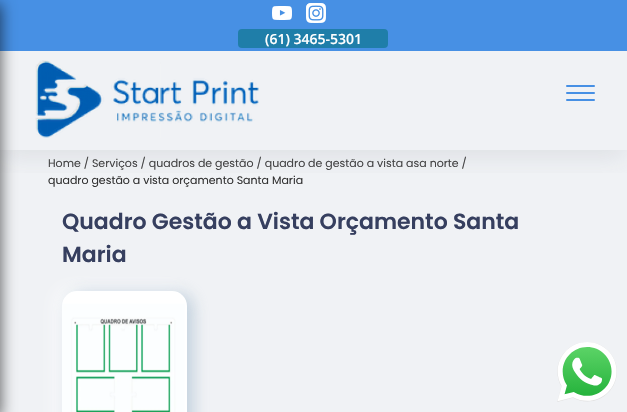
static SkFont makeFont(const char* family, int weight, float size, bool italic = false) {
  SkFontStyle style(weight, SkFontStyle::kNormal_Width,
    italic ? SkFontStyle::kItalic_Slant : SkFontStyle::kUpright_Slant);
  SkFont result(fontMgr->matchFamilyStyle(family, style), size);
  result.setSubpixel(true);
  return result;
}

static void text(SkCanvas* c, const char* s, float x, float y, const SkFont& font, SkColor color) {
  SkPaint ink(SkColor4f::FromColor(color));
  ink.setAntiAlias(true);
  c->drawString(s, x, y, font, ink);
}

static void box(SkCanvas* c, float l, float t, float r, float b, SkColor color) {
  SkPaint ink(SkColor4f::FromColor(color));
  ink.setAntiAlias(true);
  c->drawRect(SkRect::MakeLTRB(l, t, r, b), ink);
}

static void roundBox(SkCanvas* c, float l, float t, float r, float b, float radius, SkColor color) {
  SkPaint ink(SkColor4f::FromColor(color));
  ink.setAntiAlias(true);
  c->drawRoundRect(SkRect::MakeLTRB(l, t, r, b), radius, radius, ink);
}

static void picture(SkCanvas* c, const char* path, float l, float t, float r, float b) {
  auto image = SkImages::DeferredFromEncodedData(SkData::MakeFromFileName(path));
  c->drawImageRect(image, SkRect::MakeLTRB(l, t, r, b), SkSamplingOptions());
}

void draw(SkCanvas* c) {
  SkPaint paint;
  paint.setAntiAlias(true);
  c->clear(0xfff0f2f5);
  c->save();
  c->clipRect(SkRect::MakeLTRB(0, 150, 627, 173));
  paint.setColor(0x33959da5);
  paint.setMaskFilter(SkMaskFilter::MakeBlur(kNormal_SkBlurStyle, 12));
  c->drawRect(SkRect::MakeLTRB(0, 8, 627, 158), paint);
  paint.setMaskFilter(nullptr);
  c->restore();
  box(c, 0, 0, 627, 51, 0xff4790e4);
  paint.setColor(0x99000000);
  paint.setMaskFilter(SkMaskFilter::MakeBlur(kNormal_SkBlurStyle, 7.5f));
  c->drawRect(SkRect::MakeLTRB(-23, 4, 1, 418), paint);
  paint.setMaskFilter(nullptr);
  picture(c, "img_01.png", 272, 6, 292, 20);
  picture(c, "img_02.png", 306, 3, 326, 23);
  roundBox(c, 238, 29, 388, 48, 4, 0xff1f7ea9);
  SkFont face1 = makeFont("Open Sans", 600, 14);
  text(c, "(61) 3465-5301", 265, 44, face1, 0xffffffff);
  picture(c, "img_03.png", 35, 60, 259, 138);
  roundBox(c, 566, 85, 595, 87, 1, 0xff4790e4);
  roundBox(c, 566, 92, 595, 94, 1, 0xff4790e4);
  roundBox(c, 566, 99, 595, 101, 1, 0xff4790e4);
  SkFont face2 = makeFont("Poppins", 400, 11);
  text(c, "Home / Serviços / quadros de gestão / quadro de gestão a vista asa norte /", 48, 167, face2, 0xff444444);
  text(c, "quadro gestão a vista orçamento Santa Maria", 48, 184, face2, 0xff333333);
  SkFont face3 = makeFont("Poppins", 600, 22);
  text(c, "Quadro Gestão a Vista Orçamento Santa", 62, 229, face3, 0xff363f5f);
  text(c, "Maria", 62, 262, face3, 0xff363f5f);
  paint.setColor(0xccffffff);
  paint.setMaskFilter(SkMaskFilter::MakeBlur(kNormal_SkBlurStyle, 8));
  c->drawRoundRect(SkRect::MakeLTRB(56, 289, 181, 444), 15, 15, paint);
  paint.setMaskFilter(nullptr);
  paint.setColor(0x7a88a5bf);
  paint.setMaskFilter(SkMaskFilter::MakeBlur(kNormal_SkBlurStyle, 8));
  c->drawRoundRect(SkRect::MakeLTRB(68, 293, 193, 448), 15, 15, paint);
  paint.setMaskFilter(nullptr);
  picture(c, "img_04.png", 62, 291, 187, 412);
  picture(c, "img_05.png", 557, 342, 617, 402);
}
